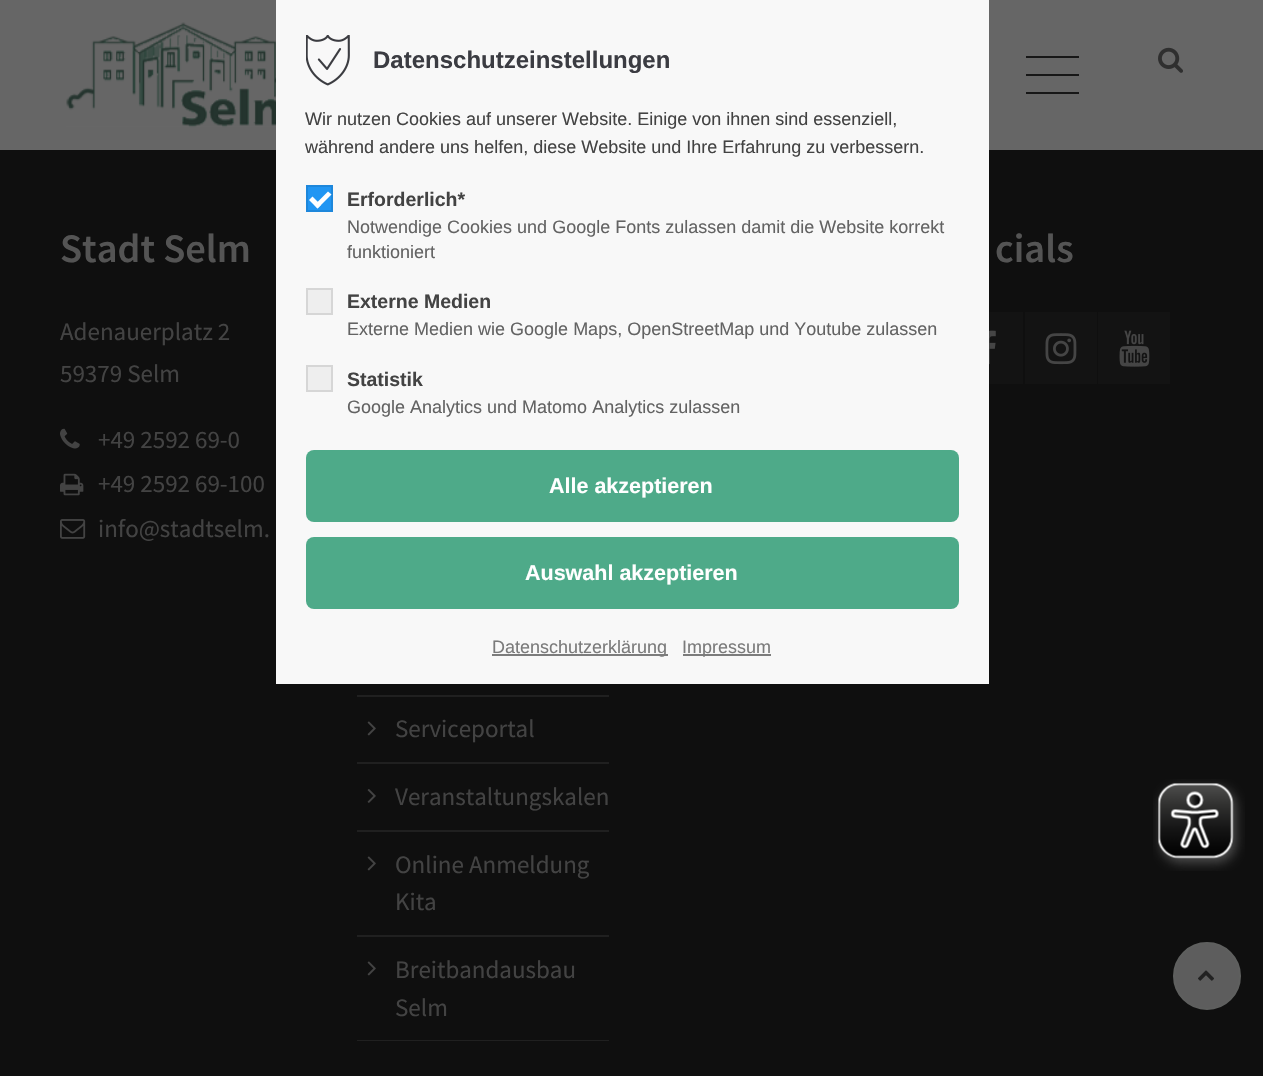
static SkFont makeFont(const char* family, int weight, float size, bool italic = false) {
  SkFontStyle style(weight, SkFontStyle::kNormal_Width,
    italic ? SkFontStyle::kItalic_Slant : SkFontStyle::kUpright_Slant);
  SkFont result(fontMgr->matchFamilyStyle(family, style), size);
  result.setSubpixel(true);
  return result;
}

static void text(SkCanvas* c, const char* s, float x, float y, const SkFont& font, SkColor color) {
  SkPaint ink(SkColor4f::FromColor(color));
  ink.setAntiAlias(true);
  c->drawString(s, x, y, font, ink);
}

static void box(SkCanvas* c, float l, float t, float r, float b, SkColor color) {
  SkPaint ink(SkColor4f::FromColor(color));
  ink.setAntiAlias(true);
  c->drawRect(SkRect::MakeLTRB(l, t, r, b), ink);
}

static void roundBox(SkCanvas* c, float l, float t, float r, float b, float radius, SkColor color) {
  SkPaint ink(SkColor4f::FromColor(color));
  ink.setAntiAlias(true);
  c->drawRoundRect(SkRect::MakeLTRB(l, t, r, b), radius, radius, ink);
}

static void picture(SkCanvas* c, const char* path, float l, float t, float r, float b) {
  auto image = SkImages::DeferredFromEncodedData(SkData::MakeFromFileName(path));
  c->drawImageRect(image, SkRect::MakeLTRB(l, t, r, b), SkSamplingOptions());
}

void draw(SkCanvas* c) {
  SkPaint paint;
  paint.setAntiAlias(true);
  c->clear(0xff0f0f0f);
  box(c, 0, 0, 1263, 150, 0xff666666);
  picture(c, "img_01.png", 66, 22, 276, 128);
  box(c, 1026, 74, 1079, 76, 0xff171717);
  box(c, 1026, 56, 1079, 58, 0xff171717);
  box(c, 1026, 92, 1079, 94, 0xff171717);
  picture(c, "img_02.png", 1158, 47, 1183, 73);
  box(c, 276, 0, 989, 684, 0xfff8f8f8);
  picture(c, "img_03.png", 306, 35, 350, 86);
  SkFont face1 = makeFont("Liberation Sans", 700, 24);
  text(c, "Datenschutzeinstellungen", 373, 68, face1, 0xff3b3c42);
  SkFont face2 = makeFont("Liberation Sans", 400, 18);
  text(c, "Wir nutzen Cookies auf unserer Website. Einige von ihnen sind essenziell,", 305, 125, face2, 0xff434343);
  text(c, "während andere uns helfen, diese Website und Ihre Erfahrung zu verbessern.", 305, 153, face2, 0xff434343);
  paint.setColor(0xff2196f3);
  c->drawRect(SkRect::MakeLTRB(307, 186, 332, 211), paint);
  paint.setStyle(SkPaint::kStroke_Style);
  paint.setStrokeWidth(2);
  paint.setColor(0xff1e87db);
  c->drawRect(SkRect::MakeLTRB(307, 186, 332, 211), paint);
  paint.setStyle(SkPaint::kFill_Style);
  paint.setColor(0xffffffff);
  c->drawPath(SkPathBuilder().moveTo(328, 191.5f).lineTo(331.5f, 194.5f).lineTo(317.5f, 208.5f).lineTo(314.5f, 205).close().detach(), paint);
  c->drawPath(SkPathBuilder().moveTo(312.5f, 196.5f).lineTo(321, 205).lineTo(317.5f, 208.5f).lineTo(309, 200).close().detach(), paint);
  SkFont face3 = makeFont("Liberation Sans", 700, 19.5f);
  text(c, "Erforderlich*", 347, 206, face3, 0xff434343);
  text(c, "Notwendige Cookies und Google Fonts zulassen damit die Website korrekt", 347, 233, face2, 0xff636363);
  text(c, "funktioniert", 347, 258, face2, 0xff636363);
  paint.setColor(0xffeeeeee);
  c->drawRect(SkRect::MakeLTRB(307, 289, 332, 314), paint);
  paint.setStyle(SkPaint::kStroke_Style);
  paint.setColor(0xffd6d6d6);
  c->drawRect(SkRect::MakeLTRB(307, 289, 332, 314), paint);
  text(c, "Externe Medien", 347, 308, face3, 0xff434343);
  text(c, "Externe Medien wie Google Maps, OpenStreetMap und Youtube zulassen", 347, 335, face2, 0xff636363);
  paint.setStyle(SkPaint::kFill_Style);
  paint.setColor(0xffeeeeee);
  c->drawRect(SkRect::MakeLTRB(307, 366, 332, 391), paint);
  paint.setStyle(SkPaint::kStroke_Style);
  paint.setColor(0xffd6d6d6);
  c->drawRect(SkRect::MakeLTRB(307, 366, 332, 391), paint);
  text(c, "Statistik", 347, 386, face3, 0xff434343);
  text(c, "Google Analytics und Matomo Analytics zulassen", 347, 413, face2, 0xff636363);
  roundBox(c, 306, 450, 959, 522, 8, 0xff4eaa89);
  SkFont face4 = makeFont("Liberation Sans", 700, 21.5f);
  text(c, "Alle akzeptieren", 549, 493, face4, 0xffffffff);
  roundBox(c, 306, 537, 959, 609, 8, 0xff4eaa89);
  text(c, "Auswahl akzeptieren", 525, 580, face4, 0xffffffff);
  box(c, 492, 654, 668, 656, 0xff7c7c7c);
  text(c, "Datenschutzerklärung", 492, 653, face2, 0xff7b7b7b);
  box(c, 683, 654, 771, 656, 0xff7c7c7c);
  text(c, "Impressum", 682, 653, face2, 0xff7b7b7b);
  SkFont face5 = makeFont("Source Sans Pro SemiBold", 600, 40.5f);
  text(c, "Stadt Selm", 60, 262, face5, 0xff545454);
  SkFont face6 = makeFont("Source Sans Pro", 400, 25);
  text(c, "Adenauerplatz 2", 60, 340, face6, 0xff434343);
  text(c, "59379 Selm", 60, 382, face6, 0xff434343);
  picture(c, "img_04.png", 60, 428, 80, 449);
  text(c, "+49 2592 69-0", 98, 448, face6, 0xff434343);
  picture(c, "img_05.png", 60, 473, 84, 496);
  text(c, "+49 2592 69-100", 98, 492, face6, 0xff434343);
  picture(c, "img_06.png", 60, 519, 86, 539);
  text(c, "info@stadtselm.", 98, 537, face6, 0xff434343);
  text(c, "cials", 995, 262, face5, 0xff545454);
  box(c, 989, 312, 1023, 384, 0xff131313);
  picture(c, "img_07.png", 989, 330, 996, 365);
  box(c, 1025, 312, 1097, 384, 0xff131313);
  picture(c, "img_08.png", 1045, 333, 1077, 365);
  box(c, 1098, 312, 1170, 384, 0xff131313);
  picture(c, "img_09.png", 1119, 330, 1150, 367);
  box(c, 357, 695, 609, 697, 0xff202020);
  picture(c, "img_10.png", 367, 721, 376, 736);
  text(c, "Serviceportal", 395, 737, face6, 0xff434343);
  box(c, 357, 762, 609, 764, 0xff202020);
  picture(c, "img_11.png", 367, 789, 376, 803);
  text(c, "Veranstaltungskalen", 395, 805, face6, 0xff434343);
  box(c, 357, 830, 609, 832, 0xff202020);
  picture(c, "img_10.png", 367, 856, 376, 871);
  text(c, "Online Anmeldung", 395, 873, face6, 0xff434343);
  text(c, "Kita", 395, 910, face6, 0xff434343);
  box(c, 357, 935, 609, 937, 0xff202020);
  picture(c, "img_10.png", 367, 961, 376, 976);
  text(c, "Breitbandausbau", 395, 978, face6, 0xff434343);
  text(c, "Selm", 395, 1016, face6, 0xff434343);
  box(c, 357, 1040, 609, 1041, 0xff202020);
  picture(c, "img_12.png", 1153, 779, 1245, 871);
  paint.setStyle(SkPaint::kFill_Style);
  paint.setColor(0xff5d5d5d);
  c->drawCircle(1207, 976, 33, paint);
  paint.setStyle(SkPaint::kStroke_Style);
  paint.setColor(0xff5e5f5e);
  c->drawCircle(1207, 976, 33, paint);
  picture(c, "img_13.png", 1198, 970, 1214, 981);
}
